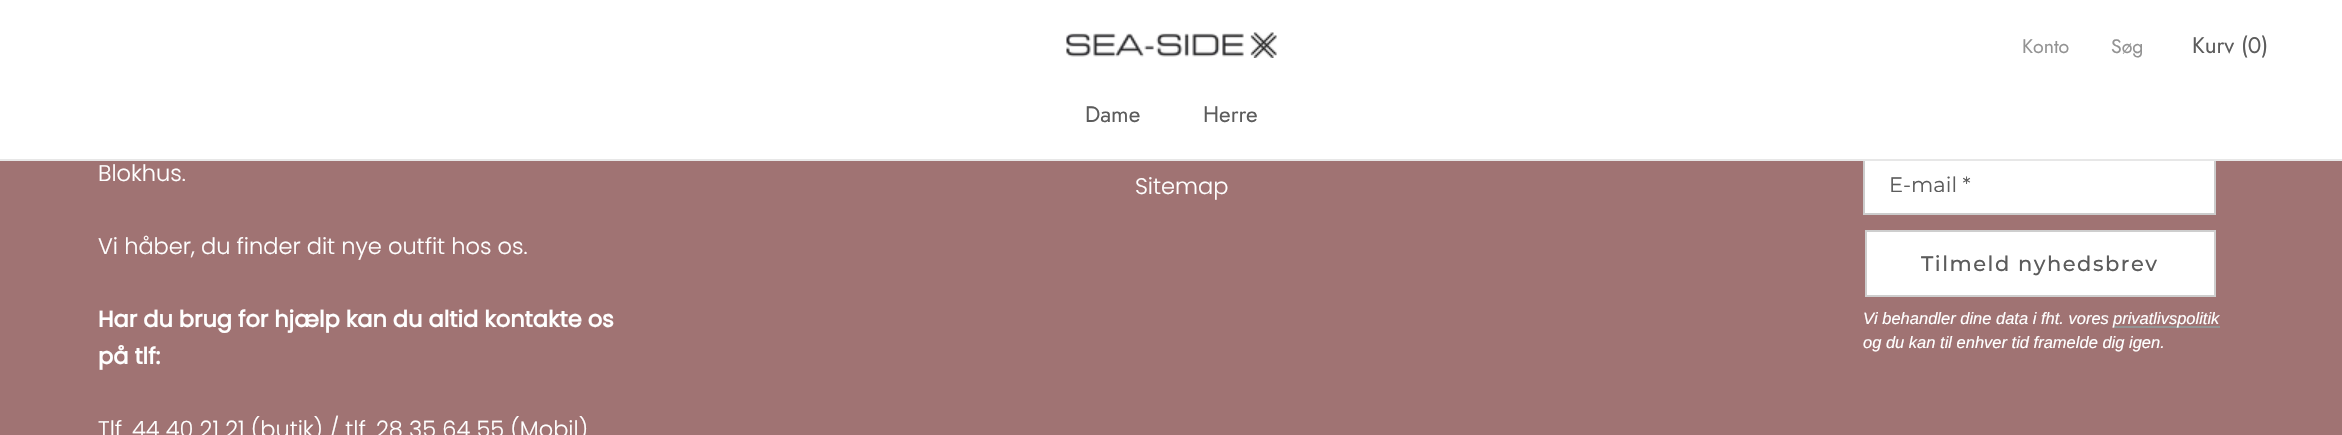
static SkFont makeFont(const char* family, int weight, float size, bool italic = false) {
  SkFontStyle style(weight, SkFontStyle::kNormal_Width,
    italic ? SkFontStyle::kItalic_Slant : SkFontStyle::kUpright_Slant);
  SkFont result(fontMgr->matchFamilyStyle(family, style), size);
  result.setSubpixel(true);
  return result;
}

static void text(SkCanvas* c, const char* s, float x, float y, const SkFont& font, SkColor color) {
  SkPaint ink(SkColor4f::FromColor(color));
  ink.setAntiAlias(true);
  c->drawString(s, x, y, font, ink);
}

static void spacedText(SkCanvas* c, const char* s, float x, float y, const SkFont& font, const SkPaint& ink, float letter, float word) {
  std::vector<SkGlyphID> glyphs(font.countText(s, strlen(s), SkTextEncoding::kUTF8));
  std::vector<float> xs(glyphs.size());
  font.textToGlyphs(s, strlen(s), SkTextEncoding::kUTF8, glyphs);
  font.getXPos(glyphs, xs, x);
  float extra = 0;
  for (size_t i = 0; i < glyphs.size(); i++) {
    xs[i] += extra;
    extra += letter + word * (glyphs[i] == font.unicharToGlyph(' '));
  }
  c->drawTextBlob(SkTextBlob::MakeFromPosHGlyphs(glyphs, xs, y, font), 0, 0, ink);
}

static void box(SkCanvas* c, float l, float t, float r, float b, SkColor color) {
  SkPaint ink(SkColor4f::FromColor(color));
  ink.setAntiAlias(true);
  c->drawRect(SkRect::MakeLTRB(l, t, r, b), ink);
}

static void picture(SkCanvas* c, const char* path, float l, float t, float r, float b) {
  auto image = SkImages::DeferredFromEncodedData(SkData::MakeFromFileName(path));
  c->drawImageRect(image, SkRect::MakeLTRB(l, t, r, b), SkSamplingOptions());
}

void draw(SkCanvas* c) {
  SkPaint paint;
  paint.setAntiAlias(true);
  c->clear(0xffa07373);
  box(c, 1865, 161, 2214, 213, 0xffffffff);
  paint.setStyle(SkPaint::kStroke_Style);
  paint.setStrokeWidth(2);
  paint.setColor(0xffcccccc);
  c->drawRect(SkRect::MakeLTRB(1864, 154, 2215, 214), paint);
  box(c, 0, 0, 2342, 159, 0xffffffff);
  box(c, 0, 159, 2342, 161, 0xffe7e7e7);
  picture(c, "img_01.png", 1066, 32, 1277, 58);
  SkFont face1 = makeFont("Jost", 400, 19.5f);
  text(c, "Konto", 2022, 53, face1, 0xff939393);
  text(c, "Søg", 2111, 53, face1, 0xff939393);
  SkFont face2 = makeFont("Jost", 400, 22.5f);
  text(c, "Kurv (0)", 2192, 53, face2, 0xff5c5c5c);
  text(c, "Dame", 1085, 122, face2, 0xff5c5c5c);
  text(c, "Herre", 1203, 122, face2, 0xff5c5c5c);
  SkFont face3 = makeFont("Poppins", 300, 22.5f);
  text(c, "Blokhus.", 98, 181, face3, 0xffffffff);
  text(c, "Vi håber, du finder dit nye outfit hos os.", 98, 254, face3, 0xffffffff);
  SkFont face4 = makeFont("Poppins", 700, 22.5f);
  text(c, "Har du brug for hjælp kan du altid kontakte os", 98, 327, face4, 0xffffffff);
  text(c, "på tlf:", 98, 364, face4, 0xffffffff);
  text(c, "Tlf", 98, 437, face3, 0xffffffff);
  text(c, "44 40 21 21 (butik) / tlf", 132, 437, face3, 0xffffffff);
  text(c, "28 35 64 55 (Mobil)", 376, 437, face3, 0xffffffff);
  text(c, "Sitemap", 1135, 194, face3, 0xffffffff);
  SkFont face5 = makeFont("Montserrat", 400, 21);
  text(c, "E-mail *", 1889, 192, face5, 0xff5c5c5c);
  paint.setStyle(SkPaint::kFill_Style);
  paint.setColor(0xffffffff);
  c->drawRect(SkRect::MakeLTRB(1866, 231, 2215, 296), paint);
  paint.setStyle(SkPaint::kStroke_Style);
  paint.setColor(0xffcecece);
  c->drawRect(SkRect::MakeLTRB(1866, 231, 2215, 296), paint);
  SkFont face6 = makeFont("Montserrat", 500, 21);
  paint.setStyle(SkPaint::kFill_Style);
  paint.setColor(0xff5c5c5c);
  spacedText(c, "Tilmeld nyhedsbrev", 1921, 271, face6, paint, 1.5f, 0);
  SkFont face7 = makeFont("Liberation Sans", 400, 16.5f, true);
  text(c, "Vi behandler dine data i fht. vores", 1863, 324, face7, 0xffffffff);
  box(c, 2114, 326, 2220, 328, 0xff939393);
  text(c, "privatlivspolitik", 2113, 324, face7, 0xffffffff);
  text(c, "og du kan til enhver tid framelde dig igen.", 1863, 348, face7, 0xffffffff);
}
